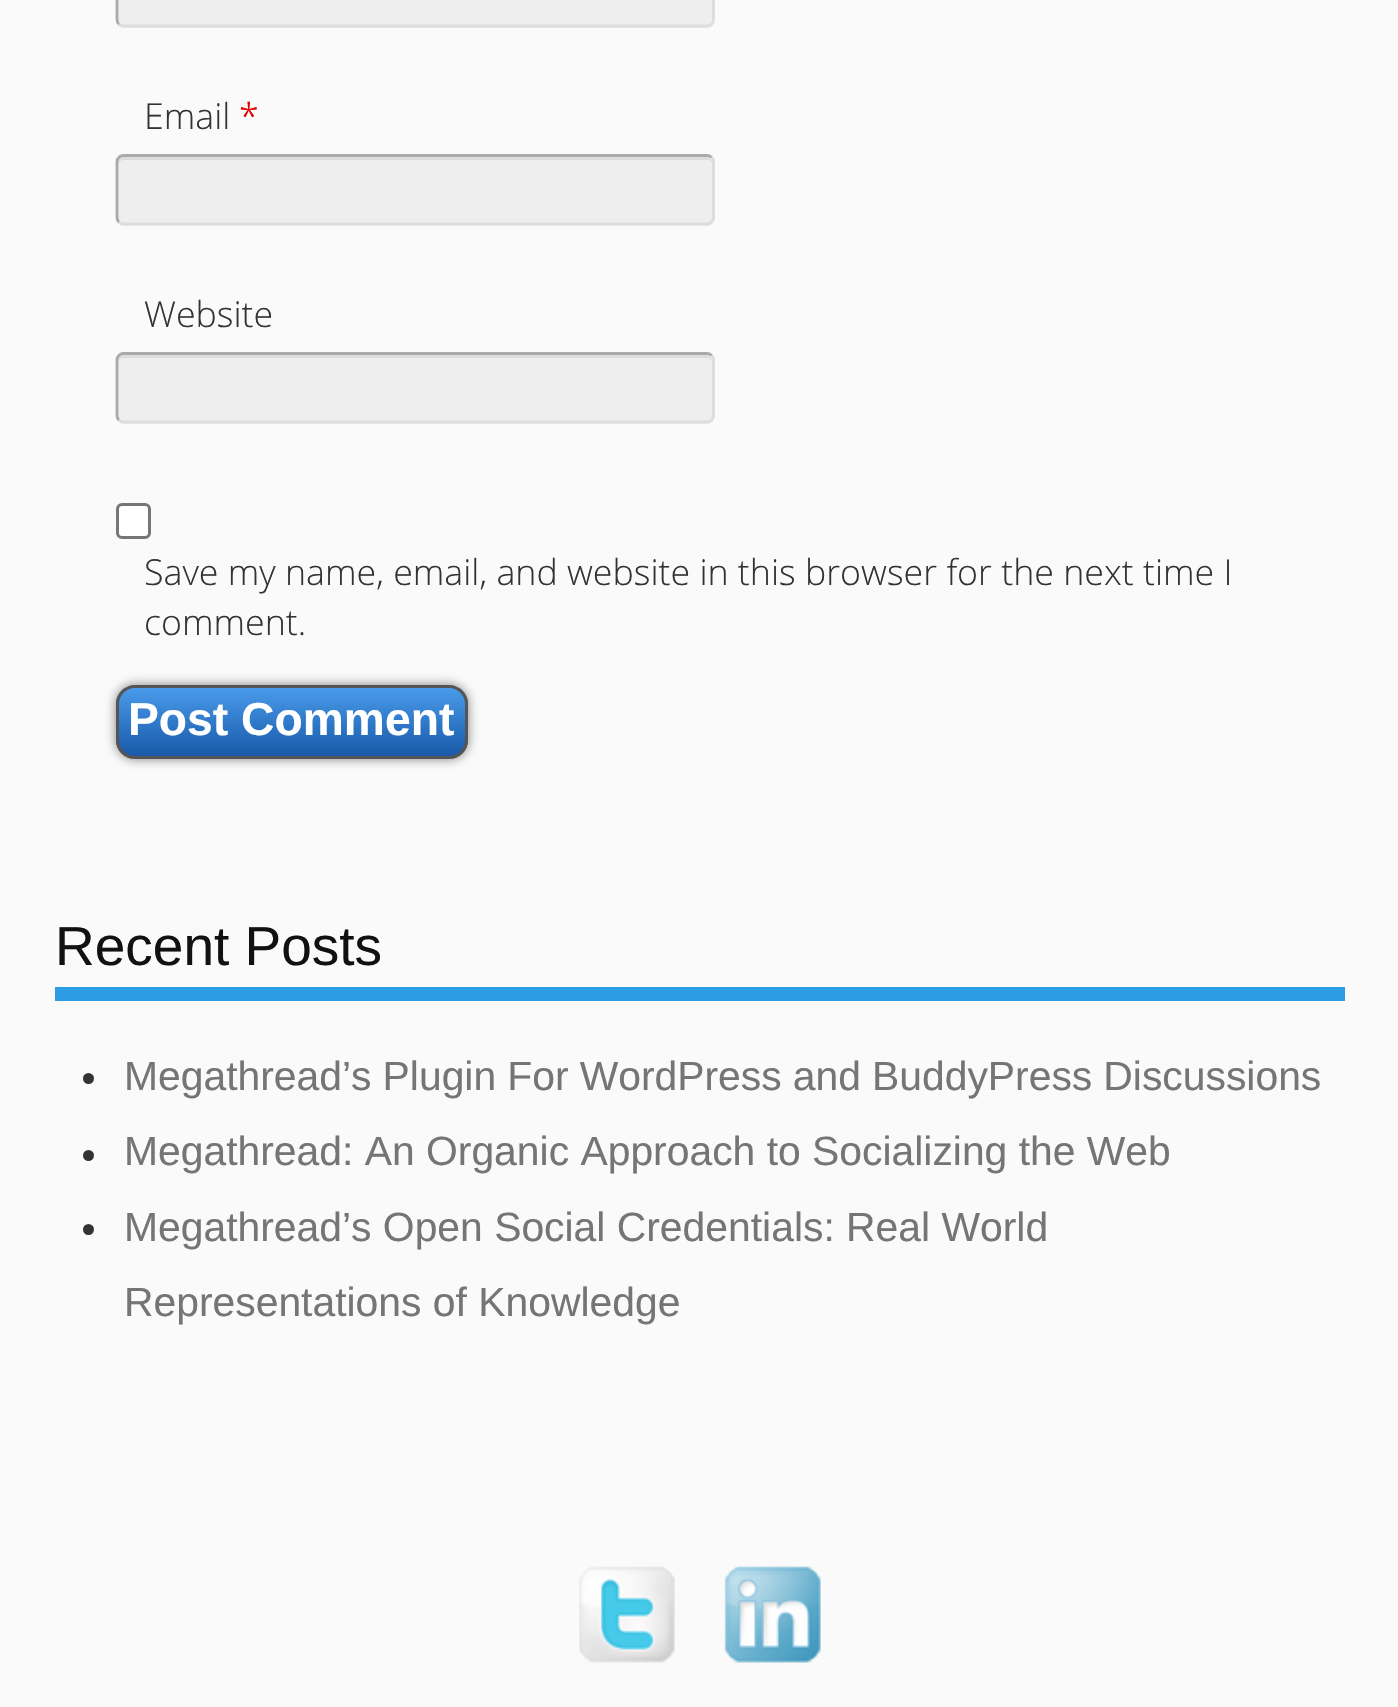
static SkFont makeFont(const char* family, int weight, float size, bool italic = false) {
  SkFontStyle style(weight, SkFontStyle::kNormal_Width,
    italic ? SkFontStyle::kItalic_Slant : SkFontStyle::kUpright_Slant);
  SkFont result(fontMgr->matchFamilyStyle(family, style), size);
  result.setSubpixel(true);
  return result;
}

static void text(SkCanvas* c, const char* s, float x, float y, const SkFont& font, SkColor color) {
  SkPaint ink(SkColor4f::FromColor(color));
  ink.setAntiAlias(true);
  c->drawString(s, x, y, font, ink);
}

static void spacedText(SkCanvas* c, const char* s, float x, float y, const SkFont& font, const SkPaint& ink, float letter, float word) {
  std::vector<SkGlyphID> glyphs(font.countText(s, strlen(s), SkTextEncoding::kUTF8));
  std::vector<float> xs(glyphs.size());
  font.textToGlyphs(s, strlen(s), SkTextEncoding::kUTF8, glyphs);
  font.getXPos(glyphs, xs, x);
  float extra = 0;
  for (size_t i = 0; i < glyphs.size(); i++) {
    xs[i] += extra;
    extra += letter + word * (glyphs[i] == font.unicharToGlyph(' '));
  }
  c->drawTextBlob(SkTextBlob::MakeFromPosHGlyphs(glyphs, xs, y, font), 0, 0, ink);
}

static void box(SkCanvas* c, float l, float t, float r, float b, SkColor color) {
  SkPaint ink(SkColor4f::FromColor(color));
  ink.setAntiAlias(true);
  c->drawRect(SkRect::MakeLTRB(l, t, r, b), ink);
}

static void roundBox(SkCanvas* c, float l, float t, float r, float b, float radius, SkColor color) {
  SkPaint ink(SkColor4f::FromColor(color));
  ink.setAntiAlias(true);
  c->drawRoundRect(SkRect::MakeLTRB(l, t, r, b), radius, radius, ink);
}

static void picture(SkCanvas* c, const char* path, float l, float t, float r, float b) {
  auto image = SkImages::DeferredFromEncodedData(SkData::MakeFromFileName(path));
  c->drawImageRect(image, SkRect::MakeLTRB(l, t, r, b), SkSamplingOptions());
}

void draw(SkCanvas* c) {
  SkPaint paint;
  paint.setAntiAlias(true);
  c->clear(0xfffafafa);
  roundBox(c, 116, -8, 715, 28, 8, 0xffeeeeee);
  paint.setStyle(SkPaint::kStroke_Style);
  paint.setStrokeWidth(2.8f);
  paint.setColor(0xffdddddd);
  c->drawPath(SkPathBuilder().moveTo(711.5f, -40.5f).cubicTo(713, -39.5f, 713.5f, -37.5f, 713.5f, -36).lineTo(713.5f, 19).cubicTo(713.5f, 21, 713, 23, 711.5f, 24).cubicTo(710.5f, 25.5f, 708.5f, 26, 707, 26).lineTo(124, 26).cubicTo(122, 26, 120, 25.5f, 119, 24).detach(), paint);
  paint.setColor(0xffaaaaaa);
  c->drawPath(SkPathBuilder().moveTo(119, 24).cubicTo(117.5f, 23, 117, 21, 117, 19.5f).lineTo(117, -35.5f).cubicTo(117, -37.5f, 117.5f, -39.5f, 119, -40.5f).cubicTo(120, -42, 122, -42.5f, 124, -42.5f).lineTo(707, -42.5f).cubicTo(708.5f, -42.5f, 710.5f, -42, 711.5f, -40.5f).detach(), paint);
  SkFont face1 = makeFont("Open Sans", 300, 35.75f);
  text(c, "Email", 144, 129, face1, 0xff333333);
  text(c, "*", 239, 129, face1, 0xffdd0000);
  roundBox(c, 116, 154, 715, 226, 8, 0xffeeeeee);
  paint.setStyle(SkPaint::kFill_Style);
  paint.setColor(0xffdcdcdc);
  c->drawPath(SkPathBuilder().moveTo(124, 160).lineTo(707, 160).cubicTo(710, 160, 712, 162, 712, 165).lineTo(712, 163).cubicTo(712, 160, 709, 157, 706, 157).lineTo(124, 157).cubicTo(121, 157, 118, 160, 118, 163).lineTo(118, 165).cubicTo(118, 162, 121, 160, 124, 160).close().detach(), paint);
  paint.setStyle(SkPaint::kStroke_Style);
  paint.setColor(0xffdddddd);
  c->drawPath(SkPathBuilder().moveTo(711.5f, 157.5f).cubicTo(713, 158.5f, 713.5f, 160.5f, 713.5f, 162).lineTo(713.5f, 217).cubicTo(713.5f, 219, 713, 221, 711.5f, 222).cubicTo(710.5f, 223.5f, 708.5f, 224, 707, 224).lineTo(124, 224).cubicTo(122, 224, 120, 223.5f, 119, 222).detach(), paint);
  paint.setColor(0xffaaaaaa);
  c->drawPath(SkPathBuilder().moveTo(119, 222).cubicTo(117.5f, 221, 117, 219, 117, 217).lineTo(117, 162).cubicTo(117, 160.5f, 117.5f, 158.5f, 119, 157.5f).cubicTo(120, 156, 122, 155.5f, 124, 155.5f).lineTo(707, 155.5f).cubicTo(708.5f, 155.5f, 710.5f, 156, 711.5f, 157.5f).detach(), paint);
  text(c, "Website", 144, 327, face1, 0xff333333);
  roundBox(c, 116, 352, 715, 424, 8, 0xffeeeeee);
  paint.setStyle(SkPaint::kFill_Style);
  paint.setColor(0xffdcdcdc);
  c->drawPath(SkPathBuilder().moveTo(124, 358).lineTo(707, 358).cubicTo(710, 358, 712, 360, 712, 363).lineTo(712, 361).cubicTo(712, 358, 709, 355, 706, 355).lineTo(124, 355).cubicTo(121, 355, 118, 358, 118, 361).lineTo(118, 363).cubicTo(118, 360, 121, 358, 124, 358).close().detach(), paint);
  paint.setStyle(SkPaint::kStroke_Style);
  paint.setColor(0xffdddddd);
  c->drawPath(SkPathBuilder().moveTo(711.5f, 355.5f).cubicTo(713, 356.5f, 713.5f, 358.5f, 713.5f, 360).lineTo(713.5f, 415).cubicTo(713.5f, 417, 713, 419, 711.5f, 420).cubicTo(710.5f, 421.5f, 708.5f, 422, 707, 422).lineTo(124, 422).cubicTo(122, 422, 120, 421.5f, 119, 420).detach(), paint);
  paint.setColor(0xffaaaaaa);
  c->drawPath(SkPathBuilder().moveTo(119, 420).cubicTo(117.5f, 419, 117, 417, 117, 415).lineTo(117, 360).cubicTo(117, 358.5f, 117.5f, 356.5f, 119, 355.5f).cubicTo(120, 354, 122, 353.5f, 124, 353.5f).lineTo(707, 353.5f).cubicTo(708.5f, 353.5f, 710.5f, 354, 711.5f, 355.5f).detach(), paint);
  paint.setStyle(SkPaint::kFill_Style);
  paint.setColor(0xffffffff);
  c->drawRoundRect(SkRect::MakeLTRB(117.5f, 504.5f, 149.5f, 537.5f), 4.5f, 4.5f, paint);
  paint.setStyle(SkPaint::kStroke_Style);
  paint.setStrokeWidth(3);
  paint.setColor(0xff767676);
  c->drawRoundRect(SkRect::MakeLTRB(117.5f, 504.5f, 149.5f, 537.5f), 4.5f, 4.5f, paint);
  text(c, "Save my name, email, and website in this browser for the next time I", 144, 585, face1, 0xff333333);
  text(c, "comment.", 144, 635, face1, 0xff333333);
  paint.setStyle(SkPaint::kFill_Style);
  paint.setColor(0x80000000);
  paint.setMaskFilter(SkMaskFilter::MakeBlur(kNormal_SkBlurStyle, 5.5f));
  c->drawRoundRect(SkRect::MakeLTRB(116, 685, 468, 759), 19, 19, paint);
  paint.setMaskFilter(nullptr);
  c->save();
  c->clipPath(SkPathBuilder().moveTo(135, 685).lineTo(449, 685).cubicTo(459.5f, 685, 468, 693.5f, 468, 704).lineTo(468, 740).cubicTo(468, 750.5f, 459.5f, 759, 449, 759).lineTo(135, 759).cubicTo(124.5f, 759, 116, 750.5f, 116, 740).lineTo(116, 704).cubicTo(116, 693.5f, 124.5f, 685, 135, 685).close().detach(), true);
  {
    const SkColor colors[] = {0xff499bea, 0xff1859a9};
    const float stops[] = {0, 1};
    const SkPoint ends[] = {{292, 688}, {292, 756}};
    paint.setShader(SkGradientShader::MakeLinear(ends, colors, stops, 2, SkTileMode::kClamp));
    paint.setAlpha(255);
  }
  c->drawRect(SkRect::MakeLTRB(116, 688, 468, 756), paint);
  c->restore();
  paint.setStyle(SkPaint::kStroke_Style);
  paint.setShader(nullptr);
  paint.setColor(0xff555555);
  c->drawRoundRect(SkRect::MakeLTRB(117.5f, 686.5f, 466.5f, 757.5f), 17.5f, 17.5f, paint);
  SkFont face2 = makeFont("Liberation Sans", 700, 46.25f);
  text(c, "Post Comment", 128, 735, face2, 0xffffffff);
  box(c, 55, 987, 1345, 1001, 0xff2c9ce4);
  SkFont face3 = makeFont("Liberation Sans", 400, 55);
  text(c, "Recent Posts", 55, 965, face3, 0xff111111);
  paint.setStyle(SkPaint::kFill_Style);
  paint.setColor(0xff333333);
  c->drawCircle(88.5f, 1078.5f, 5.5f, paint);
  SkFont face4 = makeFont("Liberation Sans", 400, 40.85f);
  paint.setColor(0xff757575);
  spacedText(c, "Megathread’s Plugin For WordPress and BuddyPress Discussions", 124, 1090, face4, paint, 0, -0.25f);
  paint.setColor(0xff333333);
  c->drawCircle(88.5f, 1155.5f, 5.5f, paint);
  text(c, "Megathread: An Organic Approach to Socializing the Web", 124, 1165, face4, 0xff757575);
  c->drawCircle(88.5f, 1229.5f, 5.5f, paint);
  text(c, "Megathread’s Open Social Credentials: Real World", 124, 1241, face4, 0xff757575);
  text(c, "Representations of Knowledge", 124, 1316, face4, 0xff757575);
  picture(c, "img_01.png", 579, 1566, 675, 1663);
  picture(c, "img_02.png", 724, 1566, 821, 1663);
}
